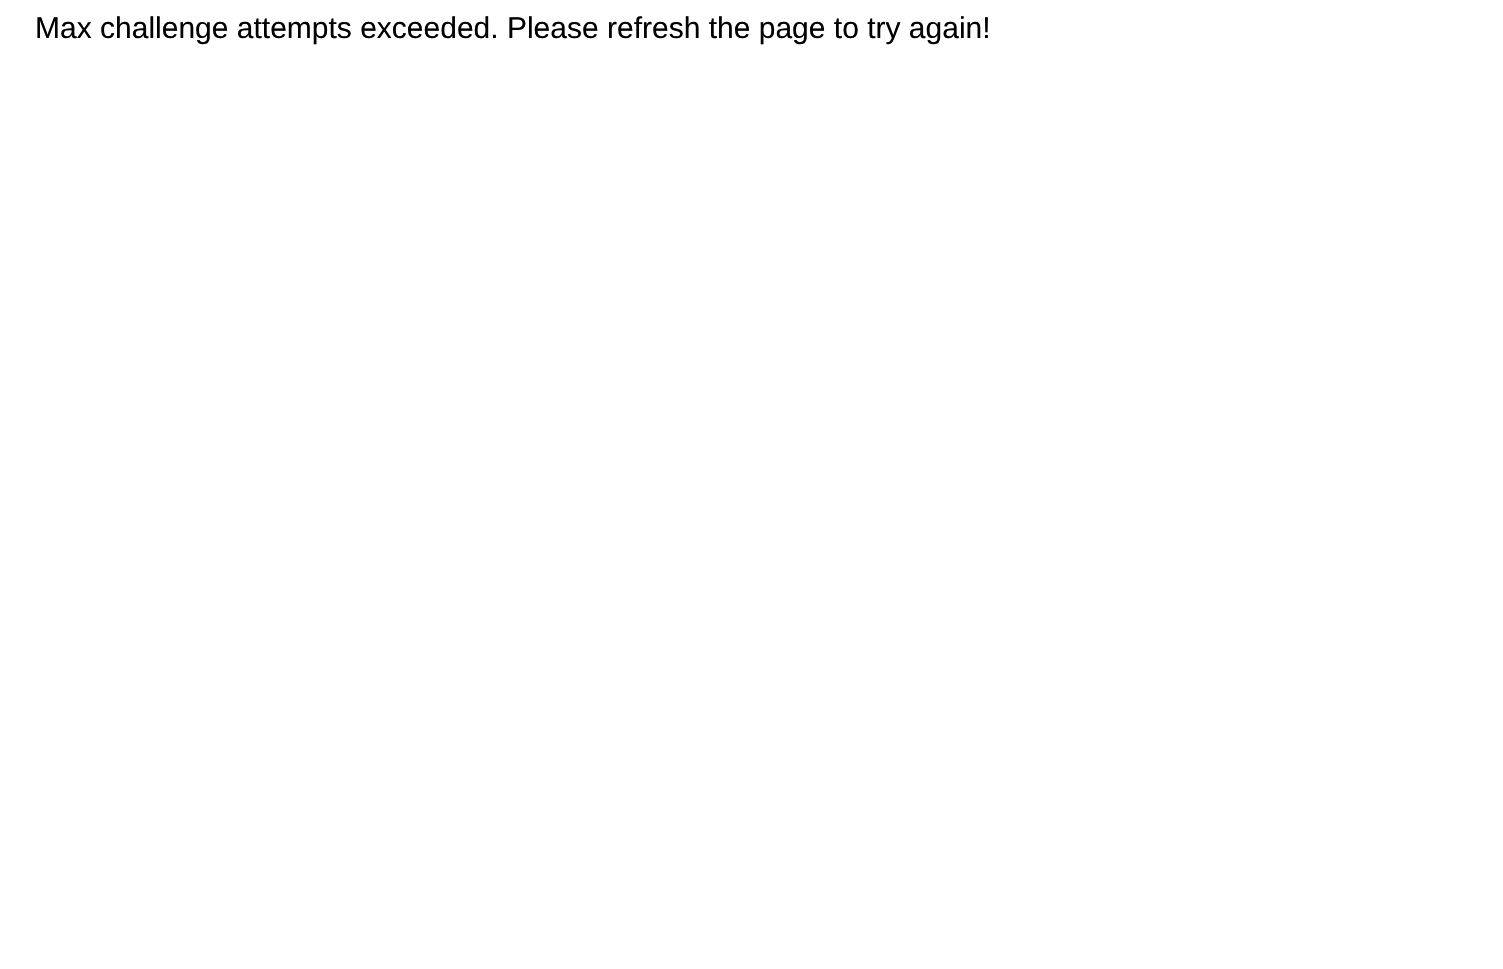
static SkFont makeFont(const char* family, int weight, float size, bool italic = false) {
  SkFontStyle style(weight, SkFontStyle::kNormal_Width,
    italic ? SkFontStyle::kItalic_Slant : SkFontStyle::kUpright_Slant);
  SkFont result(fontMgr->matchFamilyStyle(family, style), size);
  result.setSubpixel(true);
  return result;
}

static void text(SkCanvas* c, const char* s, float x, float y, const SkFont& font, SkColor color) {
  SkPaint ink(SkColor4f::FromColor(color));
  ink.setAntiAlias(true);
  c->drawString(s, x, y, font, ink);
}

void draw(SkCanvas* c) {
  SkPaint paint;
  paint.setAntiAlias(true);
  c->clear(0xffffffff);
  SkFont face1 = makeFont("Liberation Sans", 400, 30);
  text(c, "Max challenge attempts exceeded. Please refresh the page to try again!", 35, 38, face1, 0xff000000);
}
